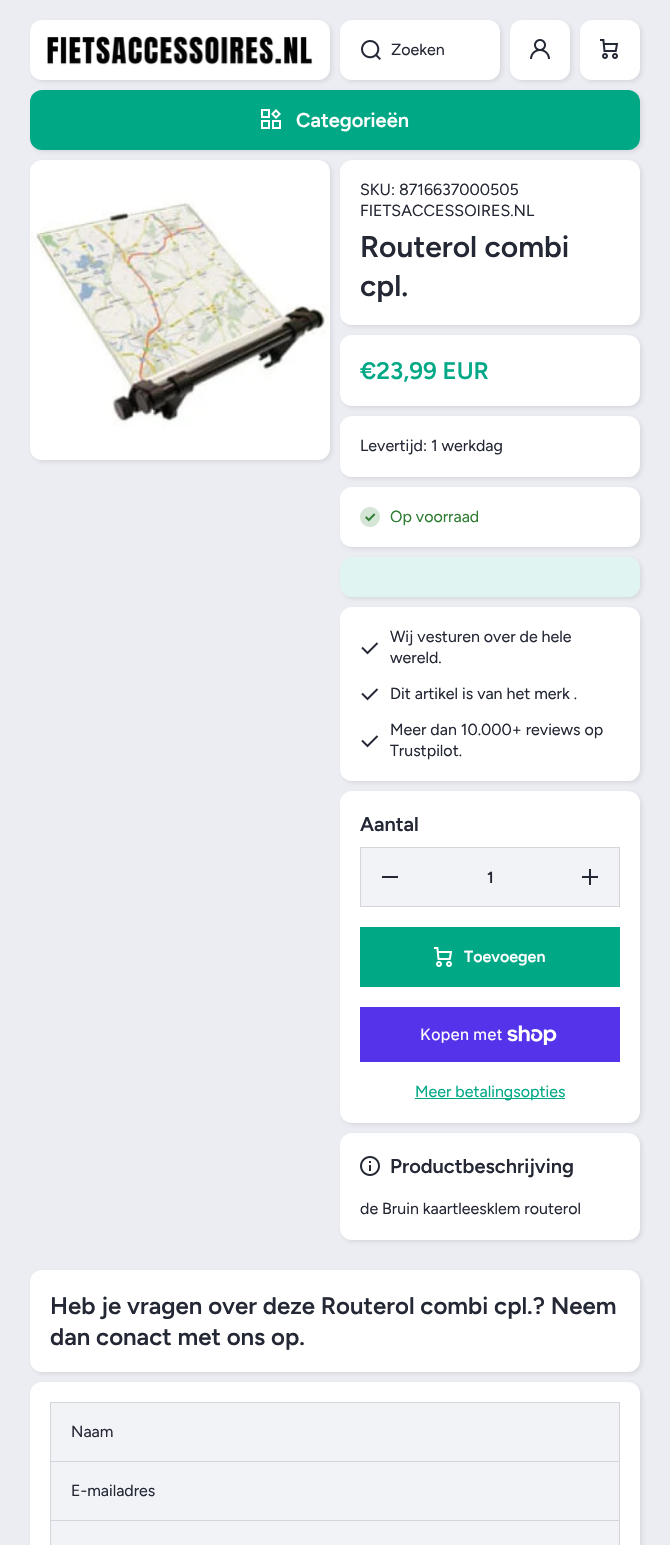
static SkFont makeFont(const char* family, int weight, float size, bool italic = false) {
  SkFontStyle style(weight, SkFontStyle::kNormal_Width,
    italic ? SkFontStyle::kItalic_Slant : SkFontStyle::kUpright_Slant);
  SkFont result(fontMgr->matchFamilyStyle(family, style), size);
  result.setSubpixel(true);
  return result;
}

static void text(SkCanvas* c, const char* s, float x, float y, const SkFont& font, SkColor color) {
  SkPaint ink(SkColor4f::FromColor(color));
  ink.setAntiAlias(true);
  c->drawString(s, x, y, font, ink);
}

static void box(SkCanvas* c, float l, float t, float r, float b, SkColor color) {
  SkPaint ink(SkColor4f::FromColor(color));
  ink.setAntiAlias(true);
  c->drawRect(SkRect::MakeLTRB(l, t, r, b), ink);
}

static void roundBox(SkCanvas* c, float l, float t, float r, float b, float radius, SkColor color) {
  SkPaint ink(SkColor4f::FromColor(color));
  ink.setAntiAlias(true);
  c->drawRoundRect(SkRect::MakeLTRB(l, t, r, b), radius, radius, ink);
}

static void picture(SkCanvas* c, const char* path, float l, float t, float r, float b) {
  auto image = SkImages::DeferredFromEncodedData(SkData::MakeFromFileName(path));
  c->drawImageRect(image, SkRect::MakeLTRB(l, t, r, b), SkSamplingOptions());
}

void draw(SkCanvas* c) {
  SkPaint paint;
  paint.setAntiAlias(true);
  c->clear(0xffecedf2);
  paint.setColor(0x1a242835);
  paint.setMaskFilter(SkMaskFilter::MakeBlur(kNormal_SkBlurStyle, 2));
  c->drawRoundRect(SkRect::MakeLTRB(32, 22, 332, 82), 12, 12, paint);
  paint.setMaskFilter(nullptr);
  roundBox(c, 30, 20, 330, 80, 12, 0xffffffff);
  picture(c, "img_01.png", 47, 36, 313, 65);
  paint.setMaskFilter(SkMaskFilter::MakeBlur(kNormal_SkBlurStyle, 2));
  c->drawRoundRect(SkRect::MakeLTRB(342, 22, 502, 82), 12, 12, paint);
  paint.setMaskFilter(nullptr);
  roundBox(c, 340, 20, 500, 80, 12, 0xffffffff);
  picture(c, "img_02.png", 361, 40, 381, 60);
  SkFont face1 = makeFont("Figtree", 400, 16);
  text(c, "Zoeken", 391, 55, face1, 0xff242835);
  paint.setMaskFilter(SkMaskFilter::MakeBlur(kNormal_SkBlurStyle, 2));
  c->drawRoundRect(SkRect::MakeLTRB(512, 22, 572, 82), 12, 12, paint);
  paint.setMaskFilter(nullptr);
  roundBox(c, 510, 20, 570, 80, 12, 0xffffffff);
  picture(c, "img_03.png", 530, 39, 550, 59);
  paint.setMaskFilter(SkMaskFilter::MakeBlur(kNormal_SkBlurStyle, 2));
  c->drawRoundRect(SkRect::MakeLTRB(582, 22, 642, 82), 12, 12, paint);
  paint.setMaskFilter(nullptr);
  roundBox(c, 580, 20, 640, 80, 12, 0xffffffff);
  picture(c, "img_04.png", 600, 39, 619, 59);
  paint.setMaskFilter(SkMaskFilter::MakeBlur(kNormal_SkBlurStyle, 2));
  c->drawRoundRect(SkRect::MakeLTRB(32, 92, 642, 152), 12, 12, paint);
  paint.setMaskFilter(nullptr);
  roundBox(c, 30, 90, 640, 150, 12, 0xff00a886);
  picture(c, "img_05.png", 261, 109, 281, 129);
  SkFont face2 = makeFont("Figtree", 600, 20);
  text(c, "Categorieën", 296, 127, face2, 0xffffffff);
  paint.setMaskFilter(SkMaskFilter::MakeBlur(kNormal_SkBlurStyle, 2));
  c->drawRoundRect(SkRect::MakeLTRB(32, 162, 332, 462), 12, 12, paint);
  paint.setMaskFilter(nullptr);
  picture(c, "img_06.png", 30, 160, 330, 460);
  paint.setMaskFilter(SkMaskFilter::MakeBlur(kNormal_SkBlurStyle, 2));
  c->drawRoundRect(SkRect::MakeLTRB(342, 162, 642, 327), 12, 12, paint);
  paint.setMaskFilter(nullptr);
  roundBox(c, 340, 160, 640, 325, 12, 0xffffffff);
  text(c, "SKU: 8716637000505", 360, 195, face1, 0xff242835);
  text(c, "FIETSACCESSOIRES.NL", 360, 216, face1, 0xff242835);
  SkFont face3 = makeFont("Figtree", 600, 30);
  text(c, "Routerol combi", 360, 257, face3, 0xff242835);
  text(c, "cpl.", 360, 296, face3, 0xff242835);
  paint.setMaskFilter(SkMaskFilter::MakeBlur(kNormal_SkBlurStyle, 2));
  c->drawRoundRect(SkRect::MakeLTRB(342, 337, 642, 408), 12, 12, paint);
  paint.setMaskFilter(nullptr);
  roundBox(c, 340, 335, 640, 406, 12, 0xffffffff);
  SkFont face4 = makeFont("Figtree", 600, 24);
  text(c, "€23,99 EUR", 360, 379, face4, 0xff00a886);
  paint.setMaskFilter(SkMaskFilter::MakeBlur(kNormal_SkBlurStyle, 2));
  c->drawRoundRect(SkRect::MakeLTRB(342, 418, 642, 479), 12, 12, paint);
  paint.setMaskFilter(nullptr);
  roundBox(c, 340, 416, 640, 477, 12, 0xffffffff);
  text(c, "Levertijd: 1 werkdag", 360, 451, face1, 0xff242835);
  paint.setMaskFilter(SkMaskFilter::MakeBlur(kNormal_SkBlurStyle, 2));
  c->drawRoundRect(SkRect::MakeLTRB(342, 489, 642, 549), 12, 12, paint);
  paint.setMaskFilter(nullptr);
  roundBox(c, 340, 487, 640, 547, 12, 0xffffffff);
  picture(c, "img_07.png", 360, 507, 380, 527);
  text(c, "Op voorraad", 390, 522, face1, 0xff2e7d32);
  paint.setMaskFilter(SkMaskFilter::MakeBlur(kNormal_SkBlurStyle, 2));
  c->drawRoundRect(SkRect::MakeLTRB(342, 559, 642, 599), 12, 12, paint);
  paint.setMaskFilter(nullptr);
  roundBox(c, 340, 557, 640, 597, 12, 0xffffffff);
  roundBox(c, 340, 557, 640, 597, 12, 0x4d99dccf);
  paint.setMaskFilter(SkMaskFilter::MakeBlur(kNormal_SkBlurStyle, 2));
  c->drawRoundRect(SkRect::MakeLTRB(342, 609, 642, 783), 12, 12, paint);
  paint.setMaskFilter(nullptr);
  roundBox(c, 340, 607, 640, 781, 12, 0xffffffff);
  picture(c, "img_08.png", 361, 642, 379, 655);
  text(c, "Wij vesturen over de hele", 390, 642, face1, 0xff242835);
  text(c, "wereld.", 390, 663, face1, 0xff242835);
  picture(c, "img_08.png", 361, 688, 379, 701);
  text(c, "Dit artikel is van het merk .", 390, 699, face1, 0xff242835);
  picture(c, "img_08.png", 361, 735, 379, 748);
  text(c, "Meer dan 10.000+ reviews op", 390, 735, face1, 0xff242835);
  text(c, "Trustpilot.", 390, 756, face1, 0xff242835);
  paint.setMaskFilter(SkMaskFilter::MakeBlur(kNormal_SkBlurStyle, 2));
  c->drawRoundRect(SkRect::MakeLTRB(342, 793, 642, 1125), 12, 12, paint);
  paint.setMaskFilter(nullptr);
  roundBox(c, 340, 791, 640, 1123, 12, 0xffffffff);
  text(c, "Aantal", 360, 831, face2, 0xff242835);
  paint.setColor(0xfff2f3f7);
  c->drawRect(SkRect::MakeLTRB(360.5f, 847.5f, 619.5f, 906.5f), paint);
  paint.setStyle(SkPaint::kStroke_Style);
  paint.setStrokeWidth(1);
  paint.setColor(0xffd4d6db);
  c->drawRect(SkRect::MakeLTRB(360.5f, 847.5f, 619.5f, 906.5f), paint);
  box(c, 382, 876, 398, 878, 0xff242835);
  SkFont face5 = makeFont("Figtree", 600, 16);
  text(c, "1", 487, 883, face5, 0xff242835);
  picture(c, "img_09.png", 582, 869, 598, 885);
  box(c, 360, 927, 620, 987, 0xff00a886);
  picture(c, "img_10.png", 434, 947, 453, 967);
  text(c, "Toevoegen", 464, 962, face5, 0xffffffff);
  box(c, 360, 1007, 620, 1062, 0xff5433eb);
  SkFont face6 = makeFont("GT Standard", 400, 16);
  text(c, "Kopen met", 420, 1040, face6, 0xffffffff);
  picture(c, "img_11.png", 507, 1025, 557, 1045);
  box(c, 415, 1098, 565, 1099, 0xff00a886);
  text(c, "Meer betalingsopties", 415, 1097, face1, 0xff00a886);
  paint.setStyle(SkPaint::kFill_Style);
  paint.setColor(0x1a242835);
  paint.setMaskFilter(SkMaskFilter::MakeBlur(kNormal_SkBlurStyle, 2));
  c->drawRoundRect(SkRect::MakeLTRB(342, 1135, 642, 1242), 12, 12, paint);
  paint.setMaskFilter(nullptr);
  roundBox(c, 340, 1133, 640, 1240, 12, 0xffffffff);
  picture(c, "img_12.png", 360, 1156, 380, 1176);
  text(c, "Productbeschrijving", 390, 1173, face2, 0xff242835);
  text(c, "de Bruin kaartleesklem routerol", 360, 1214, face1, 0xff242835);
  paint.setMaskFilter(SkMaskFilter::MakeBlur(kNormal_SkBlurStyle, 2));
  c->drawRoundRect(SkRect::MakeLTRB(32, 1272, 642, 1374), 12, 12, paint);
  paint.setMaskFilter(nullptr);
  roundBox(c, 30, 1270, 640, 1372, 12, 0xffffffff);
  text(c, "Heb je vragen over deze Routerol combi cpl.? Neem", 50, 1314, face4, 0xff242835);
  text(c, "dan conact met ons op.", 50, 1345, face4, 0xff242835);
  paint.setMaskFilter(SkMaskFilter::MakeBlur(kNormal_SkBlurStyle, 2));
  c->drawRoundRect(SkRect::MakeLTRB(32, 1384, 642, 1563), 12, 12, paint);
  paint.setMaskFilter(nullptr);
  roundBox(c, 30, 1382, 640, 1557, 12, 0xffffffff);
  paint.setColor(0xfff2f3f7);
  c->drawRect(SkRect::MakeLTRB(50.5f, 1402.5f, 619.5f, 1461.5f), paint);
  paint.setStyle(SkPaint::kStroke_Style);
  paint.setColor(0xffd4d6db);
  c->drawRect(SkRect::MakeLTRB(50.5f, 1402.5f, 619.5f, 1461.5f), paint);
  text(c, "Naam", 71, 1437, face1, 0xff242835);
  paint.setStyle(SkPaint::kFill_Style);
  paint.setColor(0xfff2f3f7);
  c->drawRect(SkRect::MakeLTRB(50.5f, 1461.5f, 619.5f, 1520.5f), paint);
  paint.setStyle(SkPaint::kStroke_Style);
  paint.setColor(0xffd4d6db);
  c->drawRect(SkRect::MakeLTRB(50.5f, 1461.5f, 619.5f, 1520.5f), paint);
  text(c, "E-mailadres", 71, 1496, face1, 0xff242835);
  paint.setStyle(SkPaint::kFill_Style);
  paint.setColor(0xfff2f3f7);
  c->drawRect(SkRect::MakeLTRB(50.5f, 1520.5f, 619.5f, 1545.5f), paint);
  paint.setStyle(SkPaint::kStroke_Style);
  paint.setColor(0xffd4d6db);
  c->drawRect(SkRect::MakeLTRB(50.5f, 1520.5f, 619.5f, 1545.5f), paint);
}
